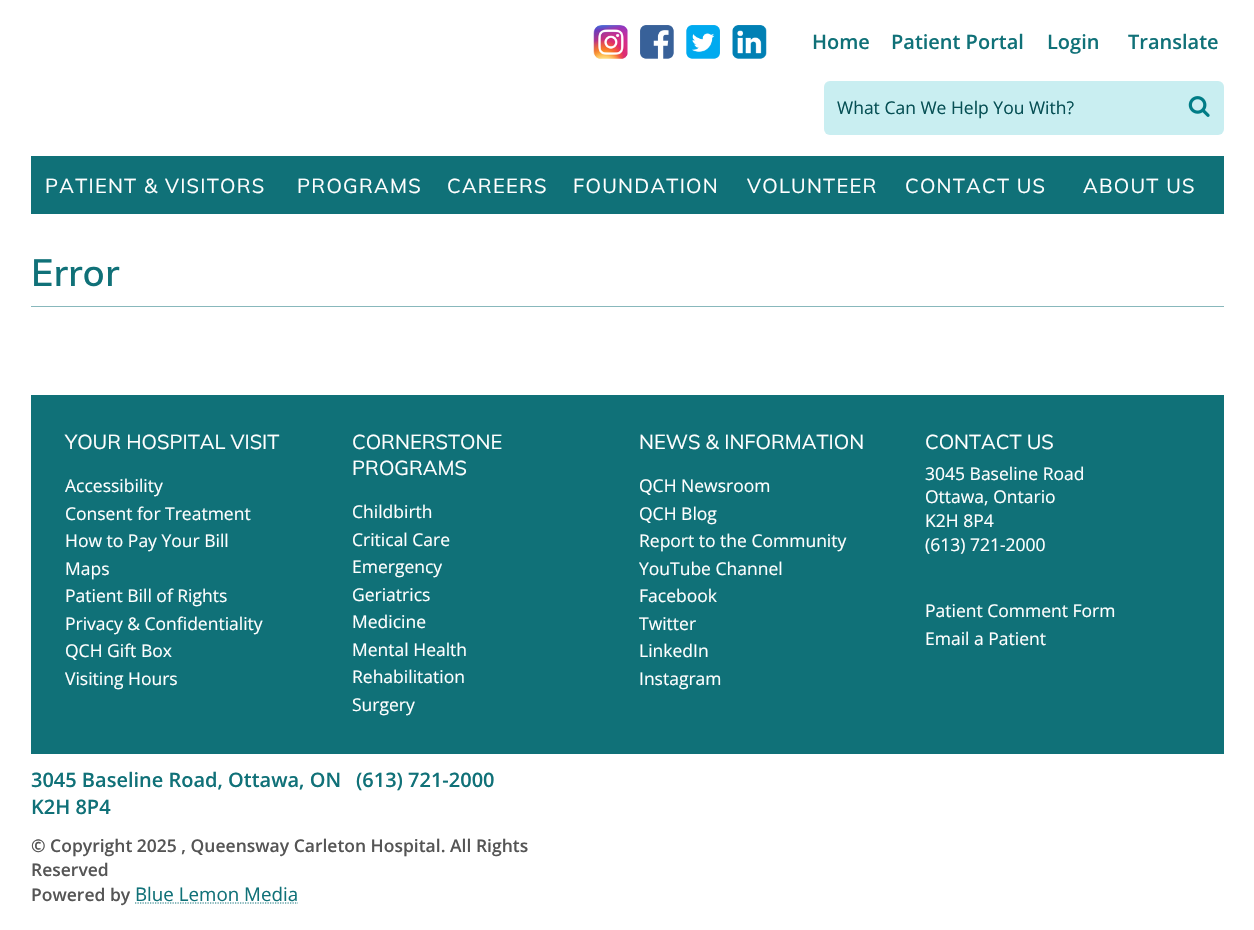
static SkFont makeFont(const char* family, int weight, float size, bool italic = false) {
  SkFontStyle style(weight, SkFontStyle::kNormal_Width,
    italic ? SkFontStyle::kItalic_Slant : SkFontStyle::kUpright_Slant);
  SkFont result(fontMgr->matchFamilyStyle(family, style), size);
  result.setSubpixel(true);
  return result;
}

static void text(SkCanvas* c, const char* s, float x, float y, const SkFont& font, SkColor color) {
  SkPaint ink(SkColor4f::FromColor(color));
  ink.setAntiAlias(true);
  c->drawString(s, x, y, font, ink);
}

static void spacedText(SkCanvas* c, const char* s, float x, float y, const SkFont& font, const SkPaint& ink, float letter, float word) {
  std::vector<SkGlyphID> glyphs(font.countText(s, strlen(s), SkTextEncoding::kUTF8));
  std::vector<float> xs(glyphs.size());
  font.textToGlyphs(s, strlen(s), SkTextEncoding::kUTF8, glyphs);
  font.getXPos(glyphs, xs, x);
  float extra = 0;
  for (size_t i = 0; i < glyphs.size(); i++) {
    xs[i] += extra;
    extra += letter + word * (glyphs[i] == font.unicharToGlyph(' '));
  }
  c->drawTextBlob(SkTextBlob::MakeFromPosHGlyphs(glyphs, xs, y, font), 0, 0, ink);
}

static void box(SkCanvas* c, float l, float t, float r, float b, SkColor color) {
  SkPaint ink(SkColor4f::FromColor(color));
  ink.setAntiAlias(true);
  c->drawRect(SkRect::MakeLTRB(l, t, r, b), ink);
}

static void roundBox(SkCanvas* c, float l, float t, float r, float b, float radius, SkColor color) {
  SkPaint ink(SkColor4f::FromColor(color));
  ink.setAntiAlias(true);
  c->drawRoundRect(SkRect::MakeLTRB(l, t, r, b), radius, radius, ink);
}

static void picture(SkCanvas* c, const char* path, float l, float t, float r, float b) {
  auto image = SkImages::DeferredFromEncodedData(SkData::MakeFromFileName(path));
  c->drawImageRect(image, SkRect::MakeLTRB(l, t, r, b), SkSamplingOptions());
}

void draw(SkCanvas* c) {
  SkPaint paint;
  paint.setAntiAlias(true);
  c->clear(0xffffffff);
  picture(c, "img_01.png", 593, 25, 628, 59);
  picture(c, "img_02.png", 640, 25, 674, 59);
  picture(c, "img_03.png", 686, 25, 720, 59);
  picture(c, "img_04.png", 732, 25, 767, 59);
  SkFont face1 = makeFont("Open Sans", 600, 20);
  text(c, "Home", 812, 49, face1, 0xff107178);
  text(c, "Patient Portal", 891, 49, face1, 0xff107178);
  text(c, "Login", 1047, 49, face1, 0xff107178);
  text(c, "Translate", 1128, 49, face1, 0xff107178);
  roundBox(c, 824, 81, 1224, 135, 6, 0xffc9eef1);
  SkFont face2 = makeFont("Open Sans", 400, 17.5f);
  text(c, "What Can We Help You With?", 837, 114, face2, 0xff064f54);
  picture(c, "img_05.png", 1188, 96, 1210, 117);
  box(c, 31, 156, 1224, 214, 0xff107178);
  SkFont face3 = makeFont("Muli", 400, 20);
  paint.setColor(0xffffffff);
  spacedText(c, "PATIENT & VISITORS", 45, 193, face3, paint, 1.25f, 0);
  spacedText(c, "PROGRAMS", 297, 193, face3, paint, 1.25f, 0);
  spacedText(c, "CAREERS", 447, 193, face3, paint, 1.25f, 0);
  spacedText(c, "FOUNDATION", 573, 193, face3, paint, 1.25f, 0);
  spacedText(c, "VOLUNTEER", 747, 193, face3, paint, 1.25f, 0);
  spacedText(c, "CONTACT US", 905, 193, face3, paint, 1.25f, 0);
  spacedText(c, "ABOUT US", 1083, 193, face3, paint, 1.25f, 0);
  SkFont face4 = makeFont("Muli", 600, 37.5f);
  paint.setColor(0xff107178);
  spacedText(c, "Error", 31, 286, face4, paint, 0.5f, 0);
  box(c, 31, 306, 1224, 307, 0xff88b8bc);
  box(c, 31, 395, 1224, 754, 0xff107178);
  text(c, "YOUR HOSPITAL VISIT", 65, 449, face3, 0xffffffff);
  text(c, "Accessibility", 65, 492, face2, 0xffffffff);
  text(c, "Consent for Treatment", 65, 520, face2, 0xffffffff);
  text(c, "How to Pay Your Bill", 65, 547, face2, 0xffffffff);
  text(c, "Maps", 65, 575, face2, 0xffffffff);
  text(c, "Patient Bill of Rights", 65, 602, face2, 0xffffffff);
  text(c, "Privacy & Confidentiality", 65, 630, face2, 0xffffffff);
  text(c, "QCH Gift Box", 65, 657, face2, 0xffffffff);
  text(c, "Visiting Hours", 65, 685, face2, 0xffffffff);
  text(c, "CORNERSTONE", 352, 449, face3, 0xffffffff);
  text(c, "PROGRAMS", 352, 475, face3, 0xffffffff);
  text(c, "Childbirth", 352, 518, face2, 0xffffffff);
  text(c, "Critical Care", 352, 546, face2, 0xffffffff);
  text(c, "Emergency", 352, 573, face2, 0xffffffff);
  text(c, "Geriatrics", 352, 601, face2, 0xffffffff);
  text(c, "Medicine", 352, 628, face2, 0xffffffff);
  text(c, "Mental Health", 352, 656, face2, 0xffffffff);
  text(c, "Rehabilitation", 352, 683, face2, 0xffffffff);
  text(c, "Surgery", 352, 711, face2, 0xffffffff);
  text(c, "NEWS & INFORMATION", 639, 449, face3, 0xffffffff);
  text(c, "QCH Newsroom", 639, 492, face2, 0xffffffff);
  text(c, "QCH Blog", 639, 520, face2, 0xffffffff);
  text(c, "Report to the Community", 639, 547, face2, 0xffffffff);
  text(c, "YouTube Channel", 639, 575, face2, 0xffffffff);
  text(c, "Facebook", 639, 602, face2, 0xffffffff);
  text(c, "Twitter", 639, 630, face2, 0xffffffff);
  text(c, "LinkedIn", 639, 657, face2, 0xffffffff);
  text(c, "Instagram", 639, 685, face2, 0xffffffff);
  text(c, "CONTACT US", 925, 449, face3, 0xffffffff);
  text(c, "3045 Baseline Road", 925, 480, face2, 0xffffffff);
  text(c, "Ottawa, Ontario", 925, 503, face2, 0xffffffff);
  text(c, "K2H 8P4", 925, 527, face2, 0xffffffff);
  text(c, "(613) 721-2000", 925, 551, face2, 0xffffffff);
  text(c, "Patient Comment Form", 925, 617, face2, 0xffffffff);
  text(c, "Email a Patient", 925, 645, face2, 0xffffffff);
  text(c, "3045 Baseline Road, Ottawa, ON", 31, 787, face1, 0xff107178);
  text(c, "K2H 8P4", 31, 814, face1, 0xff107178);
  text(c, "(613) 721-2000", 356, 787, face1, 0xff107178);
  SkFont face5 = makeFont("Open Sans", 600, 17.5f);
  text(c, "© Copyright 2025 , Queensway Carleton Hospital. All Rights", 31, 852, face5, 0xff555555);
  text(c, "Reserved", 31, 876, face5, 0xff555555);
  text(c, "Powered by", 31, 901, face5, 0xff555555);
  SkFont face6 = makeFont("Open Sans", 400, 18.75f);
  text(c, "Blue Lemon Media", 135, 901, face6, 0xff107178);
  paint.setStyle(SkPaint::kStroke_Style);
  paint.setStrokeWidth(1.2f);
  paint.setPathEffect(SkDashPathEffect::Make({{1.25f, 1.25f}}, 0));
  c->drawPath(SkPathBuilder().moveTo(135, 903).lineTo(298, 903).detach(), paint);
  paint.setPathEffect(nullptr);
}
